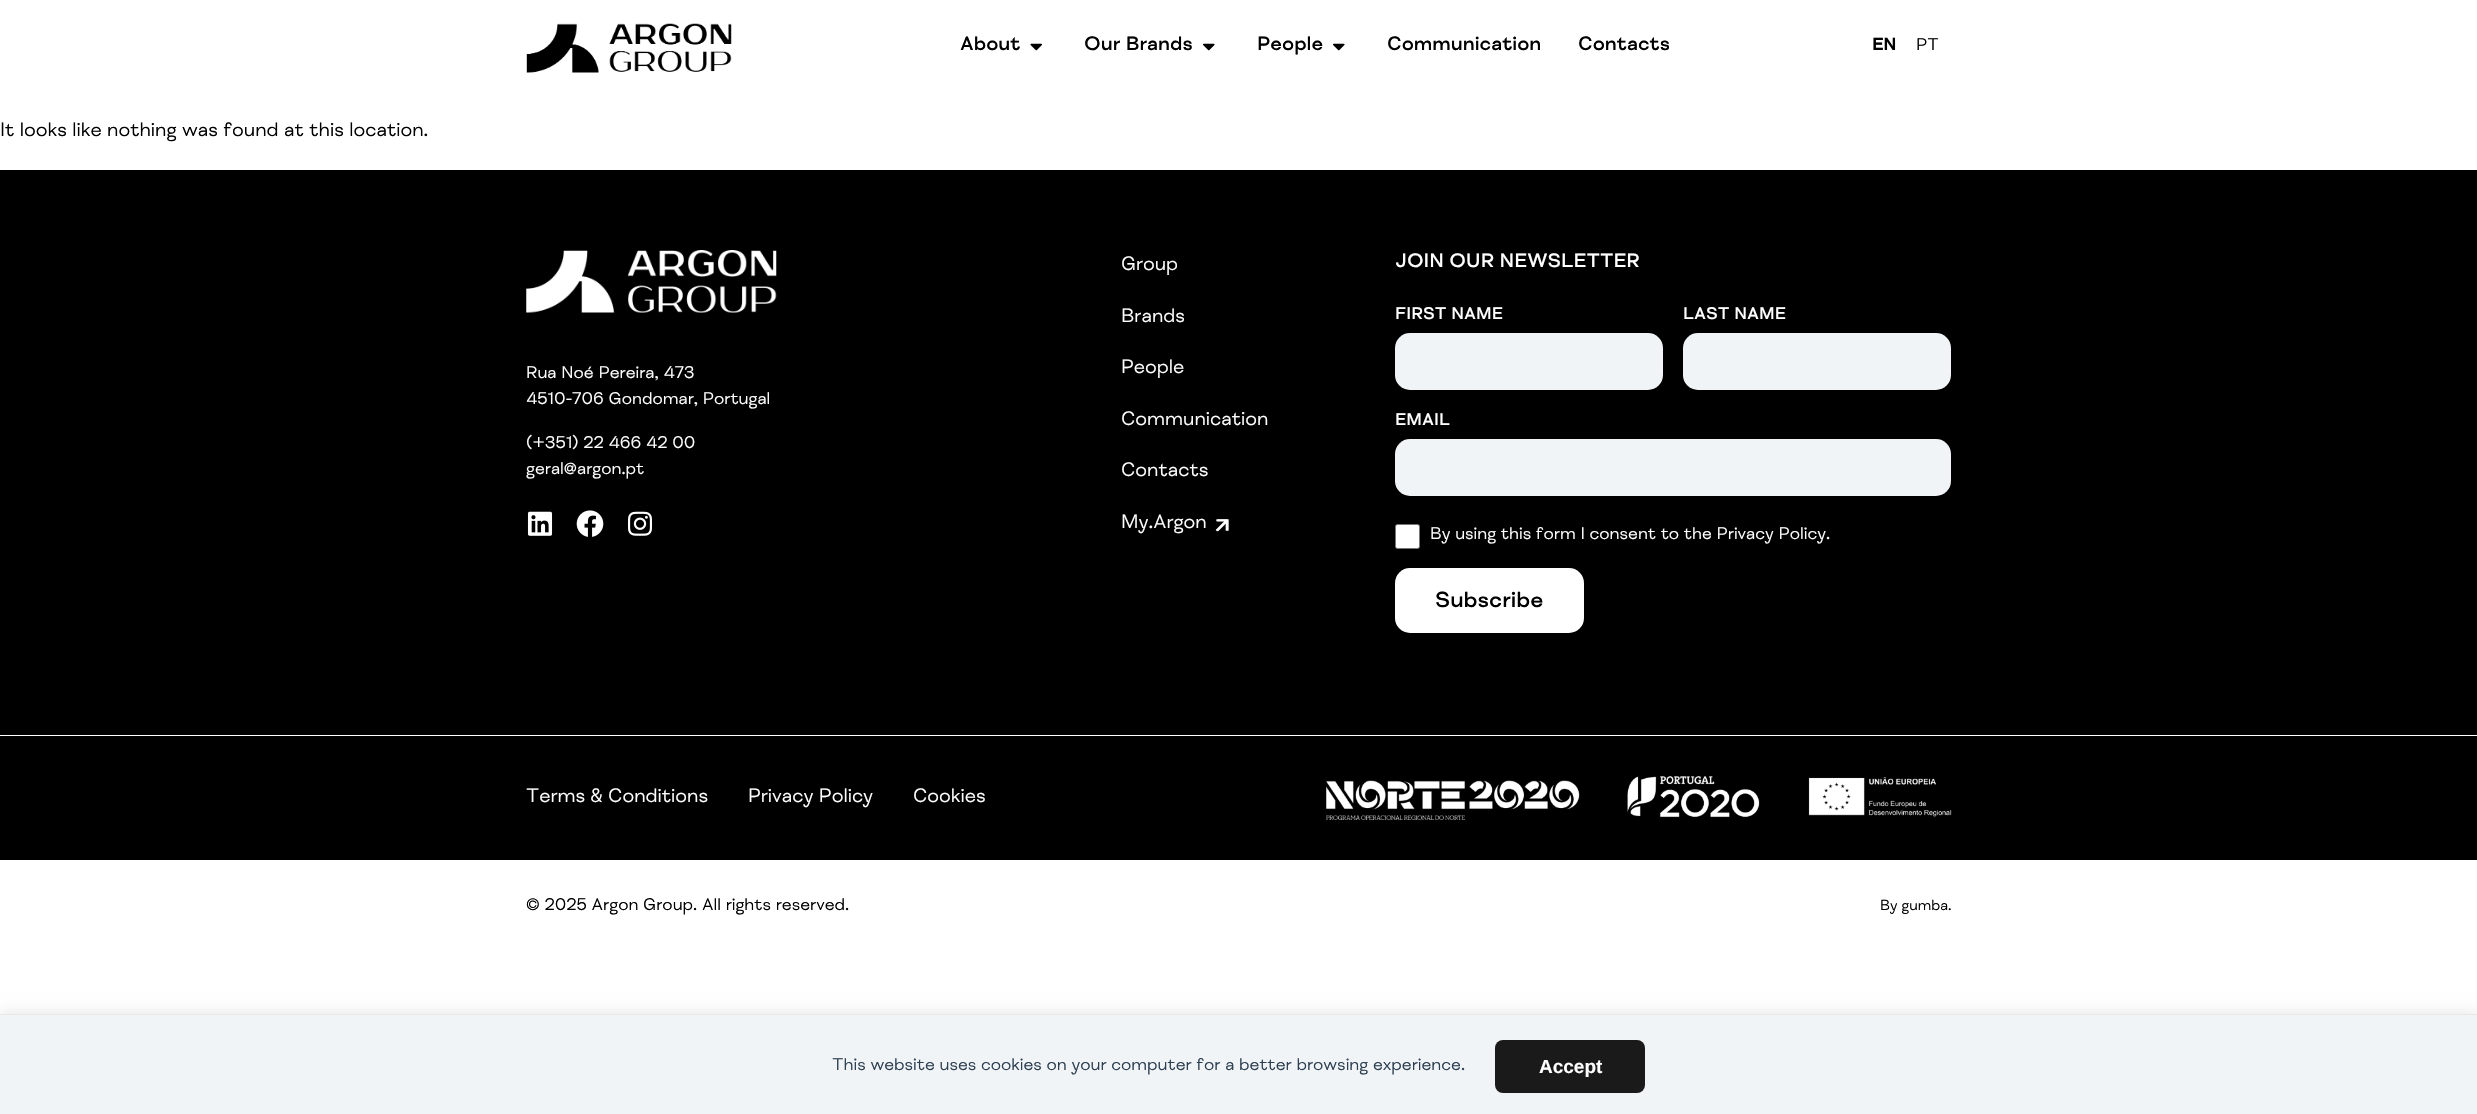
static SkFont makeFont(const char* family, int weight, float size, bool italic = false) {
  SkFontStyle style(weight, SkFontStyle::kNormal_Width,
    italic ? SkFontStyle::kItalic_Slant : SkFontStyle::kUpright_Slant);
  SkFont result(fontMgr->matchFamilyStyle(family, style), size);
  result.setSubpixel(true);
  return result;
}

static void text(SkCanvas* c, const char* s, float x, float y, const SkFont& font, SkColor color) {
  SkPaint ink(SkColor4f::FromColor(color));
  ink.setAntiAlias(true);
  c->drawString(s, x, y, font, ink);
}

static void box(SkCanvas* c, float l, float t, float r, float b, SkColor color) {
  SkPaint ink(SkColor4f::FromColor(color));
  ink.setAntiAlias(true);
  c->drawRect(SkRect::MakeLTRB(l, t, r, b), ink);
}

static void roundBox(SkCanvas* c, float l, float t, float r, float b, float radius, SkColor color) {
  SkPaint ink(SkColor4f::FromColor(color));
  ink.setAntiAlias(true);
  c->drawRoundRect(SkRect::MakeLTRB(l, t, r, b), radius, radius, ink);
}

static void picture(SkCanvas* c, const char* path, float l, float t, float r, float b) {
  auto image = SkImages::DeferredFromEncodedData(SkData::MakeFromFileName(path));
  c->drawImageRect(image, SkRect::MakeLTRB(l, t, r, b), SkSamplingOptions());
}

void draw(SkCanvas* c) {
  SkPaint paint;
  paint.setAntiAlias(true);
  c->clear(0xffffffff);
  picture(c, "img_01.png", 526, 23, 732, 73);
  SkFont face1 = makeFont("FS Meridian", 500, 20);
  text(c, "About", 960, 50, face1, 0xff000000);
  picture(c, "img_02.png", 1030, 43, 1042, 51);
  text(c, "Our Brands", 1084, 50, face1, 0xff000000);
  picture(c, "img_03.png", 1203, 43, 1215, 51);
  text(c, "People", 1257, 50, face1, 0xff000000);
  picture(c, "img_03.png", 1333, 43, 1345, 51);
  text(c, "Communication", 1387, 50, face1, 0xff000000);
  text(c, "Contacts", 1578, 50, face1, 0xff000000);
  SkFont face2 = makeFont("FS Meridian", 700, 17.5f);
  text(c, "EN", 1872, 50, face2, 0xff000000);
  SkFont face3 = makeFont("FS Meridian", 400, 17.5f);
  text(c, "PT", 1916, 50, face3, 0xff000000);
  SkFont face4 = makeFont("FS Meridian", 400, 20);
  text(c, "It looks like nothing was found at this location.", 0, 136, face4, 0xff000000);
  box(c, 0, 170, 2477, 860, 0xff000000);
  picture(c, "img_04.png", 526, 250, 777, 313);
  text(c, "Rua Noé Pereira, 473", 526, 378, face3, 0xffffffff);
  text(c, "4510-706 Gondomar, Portugal", 526, 404, face3, 0xffffffff);
  text(c, "(+351) 22 466 42 00", 526, 448, face3, 0xffffffff);
  text(c, "geral@argon.pt", 526, 474, face3, 0xffffffff);
  picture(c, "img_05.png", 527, 511, 553, 536);
  picture(c, "img_06.png", 576, 510, 604, 537);
  picture(c, "img_07.png", 627, 511, 653, 536);
  text(c, "Group", 1121, 270, face4, 0xffffffff);
  text(c, "Brands", 1121, 322, face4, 0xffffffff);
  text(c, "People", 1121, 373, face4, 0xffffffff);
  text(c, "Communication", 1121, 425, face4, 0xffffffff);
  text(c, "Contacts", 1121, 476, face4, 0xffffffff);
  text(c, "My.Argon", 1121, 528, face4, 0xffffffff);
  picture(c, "img_08.png", 1215, 519, 1229, 532);
  text(c, "JOIN OUR NEWSLETTER", 1395, 267, face1, 0xffffffff);
  SkFont face5 = makeFont("FS Meridian", 500, 17.5f);
  text(c, "FIRST NAME", 1395, 319, face5, 0xffffffff);
  roundBox(c, 1395, 333, 1663, 390, 15, 0xfff0f4f7);
  text(c, "LAST NAME", 1683, 319, face5, 0xffffffff);
  roundBox(c, 1683, 333, 1951, 390, 15, 0xfff0f4f7);
  text(c, "EMAIL", 1395, 425, face5, 0xffffffff);
  roundBox(c, 1395, 439, 1951, 496, 15, 0xfff0f4f7);
  paint.setColor(0xffffffff);
  c->drawRoundRect(SkRect::MakeLTRB(1395.5f, 524.5f, 1419.5f, 548.5f), 2, 2, paint);
  paint.setStyle(SkPaint::kStroke_Style);
  paint.setStrokeWidth(1);
  paint.setColor(0xff767676);
  c->drawRoundRect(SkRect::MakeLTRB(1395.5f, 524.5f, 1419.5f, 548.5f), 2, 2, paint);
  text(c, "By using this form I consent to the Privacy Policy.", 1430, 539, face3, 0xffffffff);
  roundBox(c, 1395, 568, 1584, 633, 15, 0xffffffff);
  SkFont face6 = makeFont("FS Meridian", 500, 22.5f);
  text(c, "Subscribe", 1435, 607, face6, 0xff000000);
  box(c, 0, 735, 2477, 736, 0xffffffff);
  text(c, "Terms & Conditions", 526, 802, face4, 0xffffffff);
  text(c, "Privacy Policy", 748, 802, face4, 0xffffffff);
  text(c, "Cookies", 913, 802, face4, 0xffffffff);
  picture(c, "img_09.png", 1326, 776, 1952, 820);
  text(c, "© 2025 Argon Group. All rights reserved.", 526, 910, face3, 0xff000000);
  SkFont face7 = makeFont("FS Meridian", 400, 15);
  text(c, "By gumba.", 1880, 910, face7, 0xff000000);
  paint.setStyle(SkPaint::kFill_Style);
  paint.setColor(0x14000000);
  paint.setMaskFilter(SkMaskFilter::MakeBlur(kNormal_SkBlurStyle, 6));
  c->drawRect(SkRect::MakeLTRB(0, 1011, 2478, 1113), paint);
  paint.setMaskFilter(nullptr);
  box(c, 0, 1015, 2477, 1114, 0xfff0f4f7);
  box(c, 0, 1014, 2477, 1015, 0xffe8e8e8);
  text(c, "This website uses cookies on your computer for a better browsing experience.", 832, 1070, face3, 0xff2c3e50);
  roundBox(c, 1495, 1040, 1645, 1093, 8, 0xff1a1a1a);
  SkFont face8 = makeFont("Liberation Sans", 700, 19);
  text(c, "Accept", 1539, 1073, face8, 0xffffffff);
}
